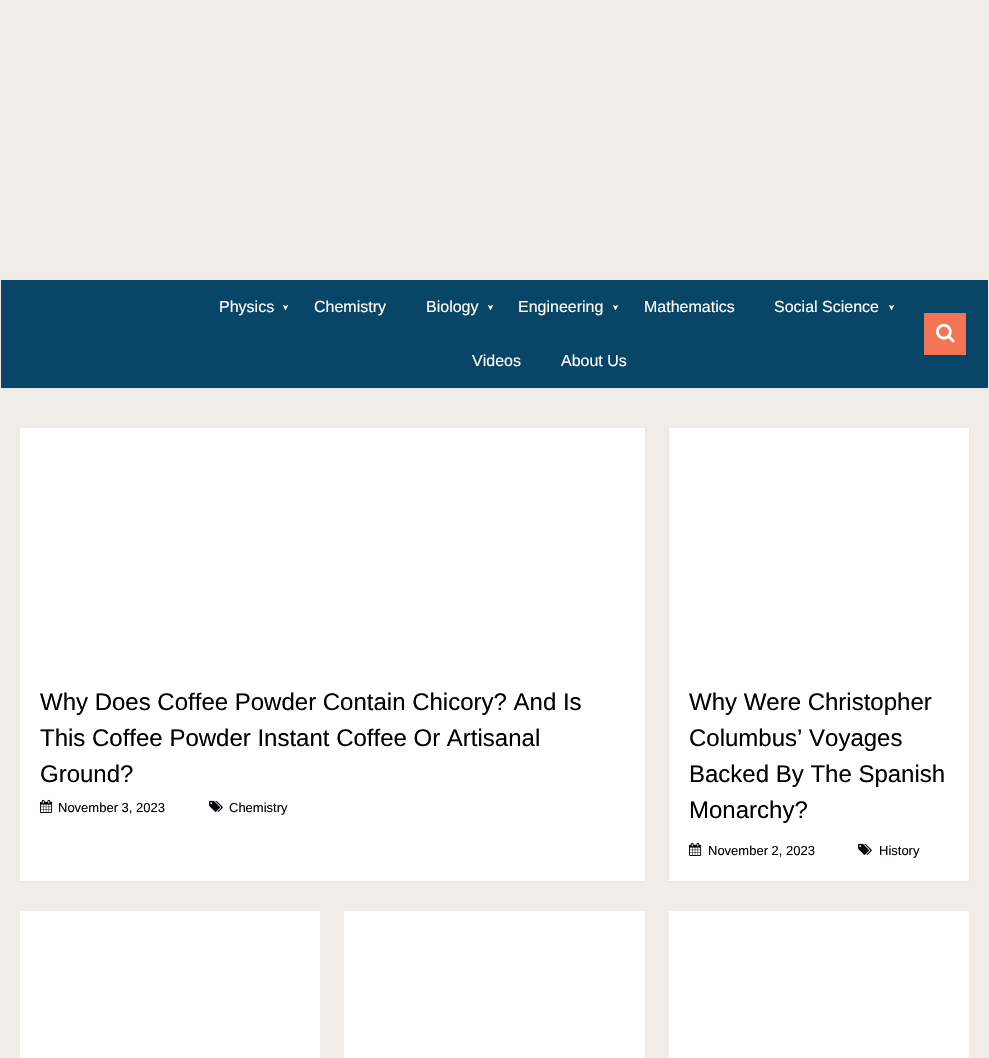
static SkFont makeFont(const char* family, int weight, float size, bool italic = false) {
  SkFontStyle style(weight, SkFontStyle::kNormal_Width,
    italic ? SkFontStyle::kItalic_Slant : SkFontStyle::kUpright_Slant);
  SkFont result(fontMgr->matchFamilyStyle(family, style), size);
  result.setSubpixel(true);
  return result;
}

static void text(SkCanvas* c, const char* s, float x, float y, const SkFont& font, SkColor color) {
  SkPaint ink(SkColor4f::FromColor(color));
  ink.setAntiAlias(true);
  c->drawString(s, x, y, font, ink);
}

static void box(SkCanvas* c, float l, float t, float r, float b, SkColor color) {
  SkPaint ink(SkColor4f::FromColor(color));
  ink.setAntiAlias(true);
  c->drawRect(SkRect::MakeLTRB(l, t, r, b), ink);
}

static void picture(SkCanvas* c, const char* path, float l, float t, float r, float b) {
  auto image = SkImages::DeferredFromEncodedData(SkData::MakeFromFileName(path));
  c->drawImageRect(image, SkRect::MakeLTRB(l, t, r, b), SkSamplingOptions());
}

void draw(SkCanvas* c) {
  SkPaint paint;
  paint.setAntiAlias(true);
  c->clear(0xfff0ede9);
  paint.setColor(0x0d000000);
  paint.setMaskFilter(SkMaskFilter::MakeBlur(kNormal_SkBlurStyle, 1));
  c->drawRect(SkRect::MakeLTRB(1, 281, 988, 389), paint);
  paint.setMaskFilter(nullptr);
  box(c, 1, 280, 988, 388, 0xff094566);
  SkFont face1 = makeFont("Liberation Sans", 400, 16);
  text(c, "Physics", 219, 312, face1, 0xffffffff);
  SkFont face2 = makeFont("DejaVu Sans", 400, 8);
  c->save();
  c->rotate(90, 283, 304);
  text(c, "➤", 283, 304, face2, 0xffffffff);
  c->restore();
  text(c, "Chemistry", 314, 312, face1, 0xffffffff);
  text(c, "Biology", 426, 312, face1, 0xffffffff);
  c->save();
  c->rotate(90, 488, 304);
  text(c, "➤", 488, 304, face2, 0xffffffff);
  c->restore();
  text(c, "Engineering", 518, 312, face1, 0xffffffff);
  c->save();
  c->rotate(90, 613, 304);
  text(c, "➤", 613, 304, face2, 0xffffffff);
  c->restore();
  text(c, "Mathematics", 644, 312, face1, 0xffffffff);
  text(c, "Social Science", 774, 312, face1, 0xffffffff);
  c->save();
  c->rotate(90, 889, 304);
  text(c, "➤", 889, 304, face2, 0xffffffff);
  c->restore();
  text(c, "Videos", 472, 366, face1, 0xffffffff);
  text(c, "About Us", 561, 366, face1, 0xffffffff);
  box(c, 924, 313, 966, 355, 0xfff47555);
  picture(c, "img_01.png", 936, 323, 955, 343);
  paint.setMaskFilter(SkMaskFilter::MakeBlur(kNormal_SkBlurStyle, 1));
  c->drawRect(SkRect::MakeLTRB(20, 429, 645, 882), paint);
  paint.setMaskFilter(nullptr);
  box(c, 20, 428, 645, 881, 0xffffffff);
  SkFont face3 = makeFont("Liberation Sans", 400, 24);
  text(c, "Why Does Coffee Powder Contain Chicory? And Is", 40, 710, face3, 0xff000000);
  text(c, "This Coffee Powder Instant Coffee Or Artisanal", 40, 746, face3, 0xff000000);
  text(c, "Ground?", 40, 782, face3, 0xff000000);
  picture(c, "img_02.png", 40, 799, 53, 813);
  SkFont face4 = makeFont("Liberation Sans", 400, 13);
  text(c, "November 3, 2023", 58, 812, face4, 0xff02020a);
  picture(c, "img_03.png", 209, 800, 223, 812);
  text(c, "Chemistry", 229, 812, face4, 0xff02020a);
  paint.setMaskFilter(SkMaskFilter::MakeBlur(kNormal_SkBlurStyle, 1));
  c->drawRect(SkRect::MakeLTRB(669, 429, 969, 882), paint);
  paint.setMaskFilter(nullptr);
  box(c, 669, 428, 969, 881, 0xffffffff);
  text(c, "Why Were Christopher", 689, 710, face3, 0xff000000);
  text(c, "Columbus’ Voyages", 689, 746, face3, 0xff000000);
  text(c, "Backed By The Spanish", 689, 782, face3, 0xff000000);
  text(c, "Monarchy?", 689, 818, face3, 0xff000000);
  picture(c, "img_02.png", 689, 842, 702, 856);
  text(c, "November 2, 2023", 708, 855, face4, 0xff02020a);
  picture(c, "img_03.png", 858, 843, 872, 855);
  text(c, "History", 879, 855, face4, 0xff02020a);
  box(c, 20, 911, 320, 1058, 0xffffffff);
  box(c, 344, 911, 645, 1058, 0xffffffff);
  box(c, 669, 911, 969, 1058, 0xffffffff);
}
